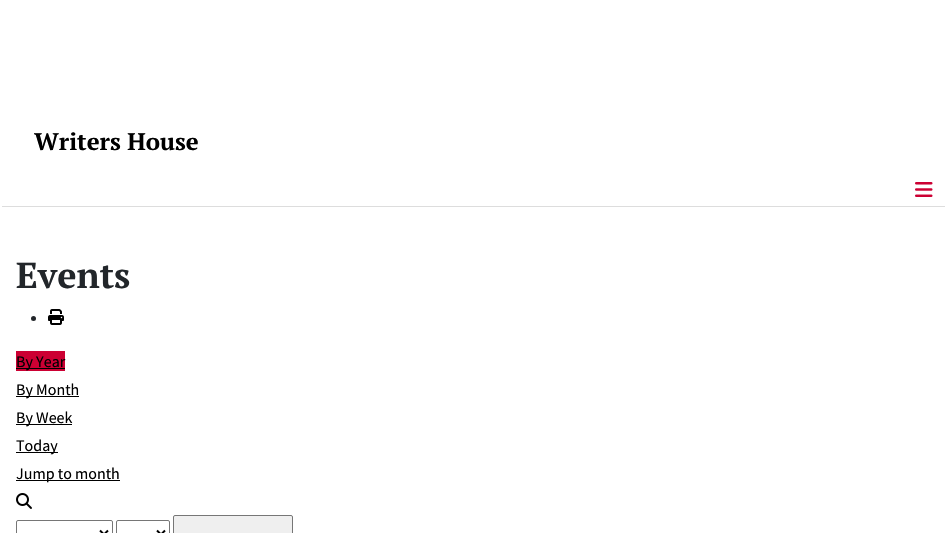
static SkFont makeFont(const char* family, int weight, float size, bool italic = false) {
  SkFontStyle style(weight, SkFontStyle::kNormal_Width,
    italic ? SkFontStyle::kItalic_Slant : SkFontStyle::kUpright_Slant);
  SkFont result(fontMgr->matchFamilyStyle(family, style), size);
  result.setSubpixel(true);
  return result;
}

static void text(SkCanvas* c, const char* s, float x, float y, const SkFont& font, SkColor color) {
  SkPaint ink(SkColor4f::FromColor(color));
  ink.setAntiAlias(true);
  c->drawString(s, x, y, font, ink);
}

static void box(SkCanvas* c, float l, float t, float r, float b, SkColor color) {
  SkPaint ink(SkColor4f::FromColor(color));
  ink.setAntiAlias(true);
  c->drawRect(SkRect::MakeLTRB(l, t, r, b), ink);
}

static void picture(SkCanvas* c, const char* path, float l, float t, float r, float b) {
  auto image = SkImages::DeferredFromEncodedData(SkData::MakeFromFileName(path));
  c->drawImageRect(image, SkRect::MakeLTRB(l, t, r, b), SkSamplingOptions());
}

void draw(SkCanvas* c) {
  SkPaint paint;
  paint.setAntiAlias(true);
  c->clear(0xffffffff);
  SkFont face1 = makeFont("PT Serif", 700, 24);
  text(c, "Writers House", 34, 150, face1, 0xff000000);
  box(c, 2, 206, 945, 207, 0xffdddddd);
  picture(c, "img_01.png", 915, 182, 933, 197);
  SkFont face2 = makeFont("PT Serif", 700, 36);
  text(c, "Events", 16, 288, face2, 0xff22262a);
  paint.setColor(0xff22262a);
  c->drawCircle(33.5f, 318.5f, 2.5f, paint);
  picture(c, "img_02.png", 48, 309, 64, 325);
  box(c, 16, 351, 65, 371, 0xffcc0033);
  box(c, 16, 368, 65, 369, 0xff000000);
  SkFont face3 = makeFont("Source Sans Pro", 400, 16);
  text(c, "By Year", 16, 367, face3, 0xff000000);
  box(c, 16, 396, 79, 397, 0xff000000);
  text(c, "By Month", 16, 395, face3, 0xff000000);
  box(c, 16, 424, 72, 425, 0xff000000);
  text(c, "By Week", 16, 423, face3, 0xff000000);
  box(c, 16, 452, 58, 453, 0xff000000);
  text(c, "Today", 16, 451, face3, 0xff000000);
  box(c, 16, 480, 120, 481, 0xff000000);
  text(c, "Jump to month", 16, 479, face3, 0xff000000);
  picture(c, "img_03.png", 16, 493, 32, 509);
  paint.setStyle(SkPaint::kStroke_Style);
  paint.setStrokeWidth(1);
  paint.setColor(0xff767676);
  c->drawRoundRect(SkRect::MakeLTRB(16.5f, 520.5f, 112.5f, 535.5f), 1.5f, 1.5f, paint);
  paint.setStrokeWidth(2);
  paint.setColor(0xff000000);
  c->drawPath(SkPathBuilder().moveTo(100, 530.5f).lineTo(104, 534.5f).lineTo(108, 530.5f).detach(), paint);
  paint.setStrokeWidth(1);
  paint.setColor(0xff767676);
  c->drawRoundRect(SkRect::MakeLTRB(116.5f, 520.5f, 169.5f, 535.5f), 1.5f, 1.5f, paint);
  paint.setStrokeWidth(2);
  paint.setColor(0xff000000);
  c->drawPath(SkPathBuilder().moveTo(157, 530.5f).lineTo(161, 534.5f).lineTo(165, 530.5f).detach(), paint);
  paint.setStyle(SkPaint::kFill_Style);
  paint.setColor(0xffefefef);
  c->drawRoundRect(SkRect::MakeLTRB(173.5f, 515.5f, 292.5f, 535.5f), 1.5f, 1.5f, paint);
  paint.setStyle(SkPaint::kStroke_Style);
  paint.setStrokeWidth(1);
  paint.setColor(0xff767676);
  c->drawRoundRect(SkRect::MakeLTRB(173.5f, 515.5f, 292.5f, 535.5f), 1.5f, 1.5f, paint);
}
